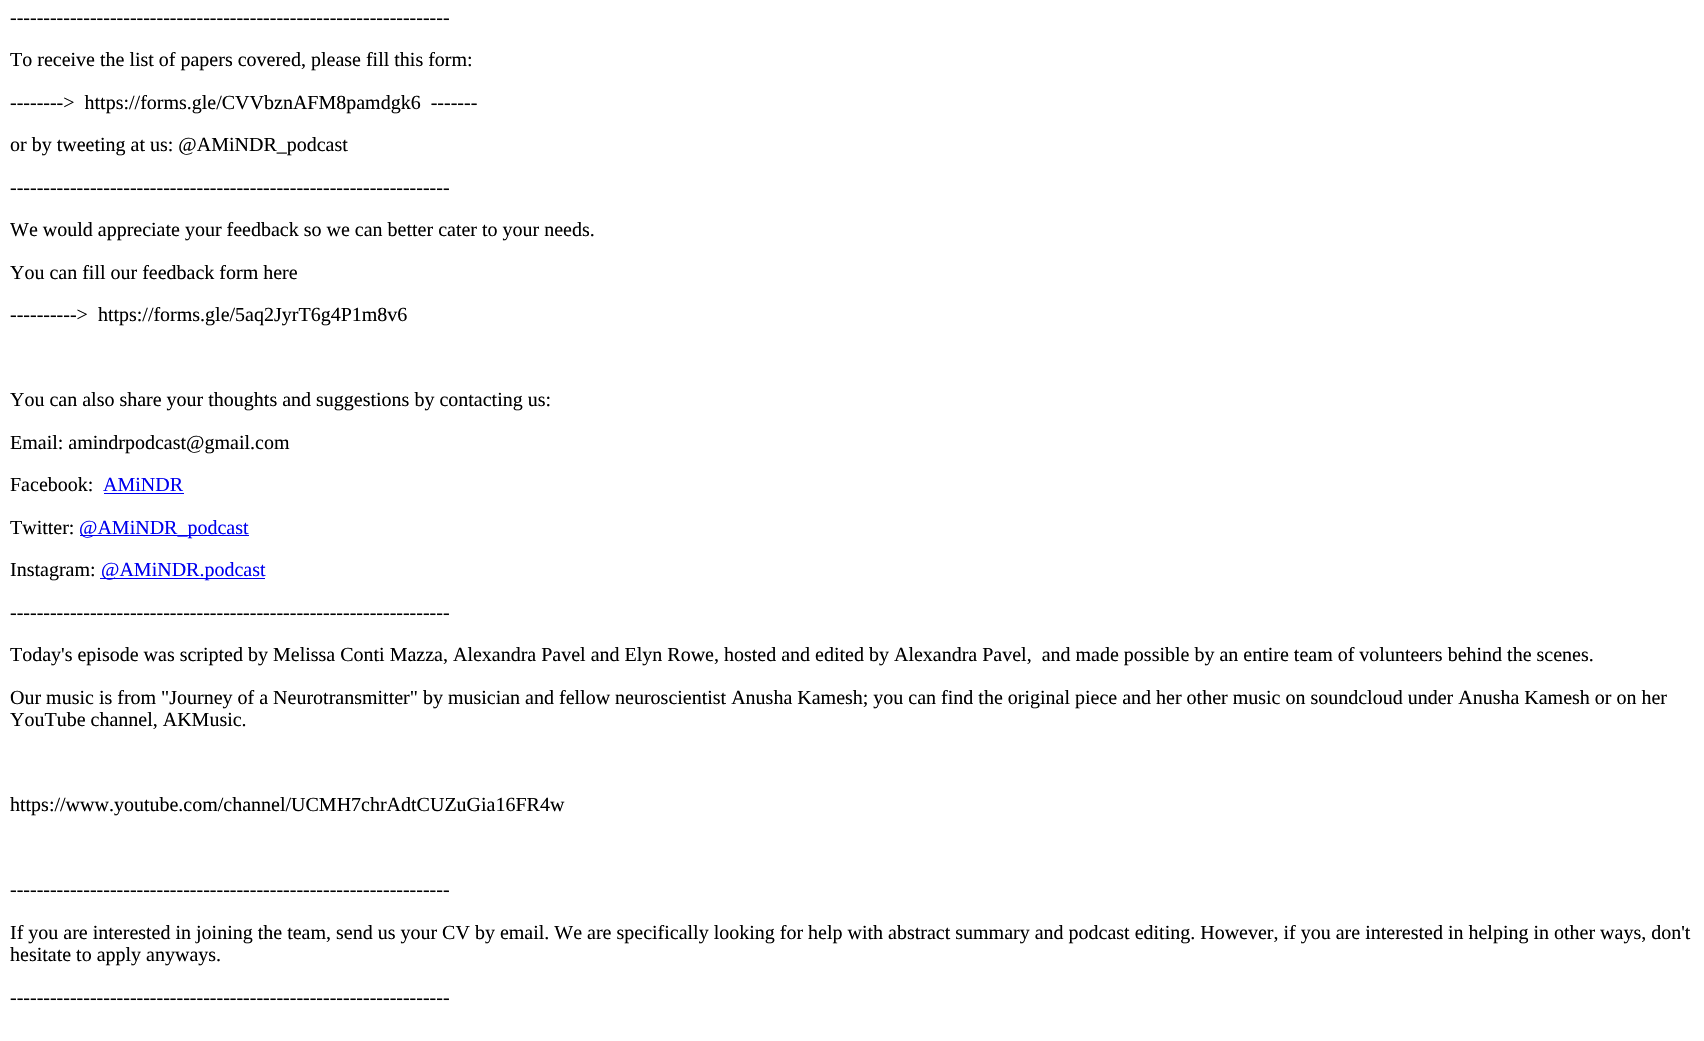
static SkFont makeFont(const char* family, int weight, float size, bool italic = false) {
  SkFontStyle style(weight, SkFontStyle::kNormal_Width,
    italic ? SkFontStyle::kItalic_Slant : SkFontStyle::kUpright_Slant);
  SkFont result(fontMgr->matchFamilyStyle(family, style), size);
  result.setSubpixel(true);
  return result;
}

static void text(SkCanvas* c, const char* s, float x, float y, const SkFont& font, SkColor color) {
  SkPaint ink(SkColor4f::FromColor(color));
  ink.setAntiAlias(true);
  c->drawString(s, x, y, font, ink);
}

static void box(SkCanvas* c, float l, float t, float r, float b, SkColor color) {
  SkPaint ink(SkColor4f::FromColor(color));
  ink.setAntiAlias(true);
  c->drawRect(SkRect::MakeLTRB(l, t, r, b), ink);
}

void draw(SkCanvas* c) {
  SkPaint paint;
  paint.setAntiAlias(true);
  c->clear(0xffffffff);
  SkFont face1 = makeFont("Liberation Serif", 400, 20);
  text(c, "------------------------------------------------------------------", 10, 24, face1, 0xff000000);
  text(c, "To receive the list of papers covered, please fill this form:", 10, 66, face1, 0xff000000);
  text(c, "-------->  https://forms.gle/CVVbznAFM8pamdgk6  -------", 10, 109, face1, 0xff000000);
  text(c, "or by tweeting at us: @AMiNDR_podcast", 10, 151, face1, 0xff000000);
  text(c, "------------------------------------------------------------------", 10, 194, face1, 0xff000000);
  text(c, "We would appreciate your feedback so we can better cater to your needs.", 10, 236, face1, 0xff000000);
  text(c, "You can fill our feedback form here", 10, 279, face1, 0xff000000);
  text(c, "---------->  https://forms.gle/5aq2JyrT6g4P1m8v6", 10, 321, face1, 0xff000000);
  text(c, "You can also share your thoughts and suggestions by contacting us:", 10, 406, face1, 0xff000000);
  text(c, "Email: amindrpodcast@gmail.com", 10, 449, face1, 0xff000000);
  text(c, "Facebook:", 10, 491, face1, 0xff000000);
  text(c, "AMiNDR", 103, 491, face1, 0xff0000ee);
  box(c, 104, 493, 184, 494, 0xff0000ee);
  text(c, "Twitter:", 10, 534, face1, 0xff000000);
  box(c, 80, 535, 249, 536, 0xff0000ee);
  text(c, "@AMiNDR_podcast", 79, 534, face1, 0xff0000ee);
  text(c, "Instagram:", 10, 576, face1, 0xff000000);
  box(c, 100, 578, 265, 579, 0xff0000ee);
  text(c, "@AMiNDR.podcast", 101, 576, face1, 0xff0000ee);
  text(c, "------------------------------------------------------------------", 10, 619, face1, 0xff000000);
  text(c, "Today's episode was scripted by Melissa Conti Mazza, Alexandra Pavel and Elyn Rowe, hosted and edited by Alexandra Pavel,  and made possible by an entire team of volunteers behind the scenes.", 10, 661, face1, 0xff000000);
  text(c, "Our music is from \"Journey of a Neurotransmitter\" by musician and fellow neuroscientist Anusha Kamesh; you can find the original piece and her other music on soundcloud under Anusha Kamesh or on her", 10, 704, face1, 0xff000000);
  text(c, "YouTube channel, AKMusic.", 10, 726, face1, 0xff000000);
  text(c, "https://www.youtube.com/channel/UCMH7chrAdtCUZuGia16FR4w", 10, 811, face1, 0xff000000);
  text(c, "------------------------------------------------------------------", 10, 896, face1, 0xff000000);
  text(c, "If you are interested in joining the team, send us your CV by email. We are specifically looking for help with abstract summary and podcast editing. However, if you are interested in helping in other ways, don't", 10, 939, face1, 0xff000000);
  text(c, "hesitate to apply anyways.", 10, 961, face1, 0xff000000);
  text(c, "------------------------------------------------------------------", 10, 1004, face1, 0xff000000);
}
